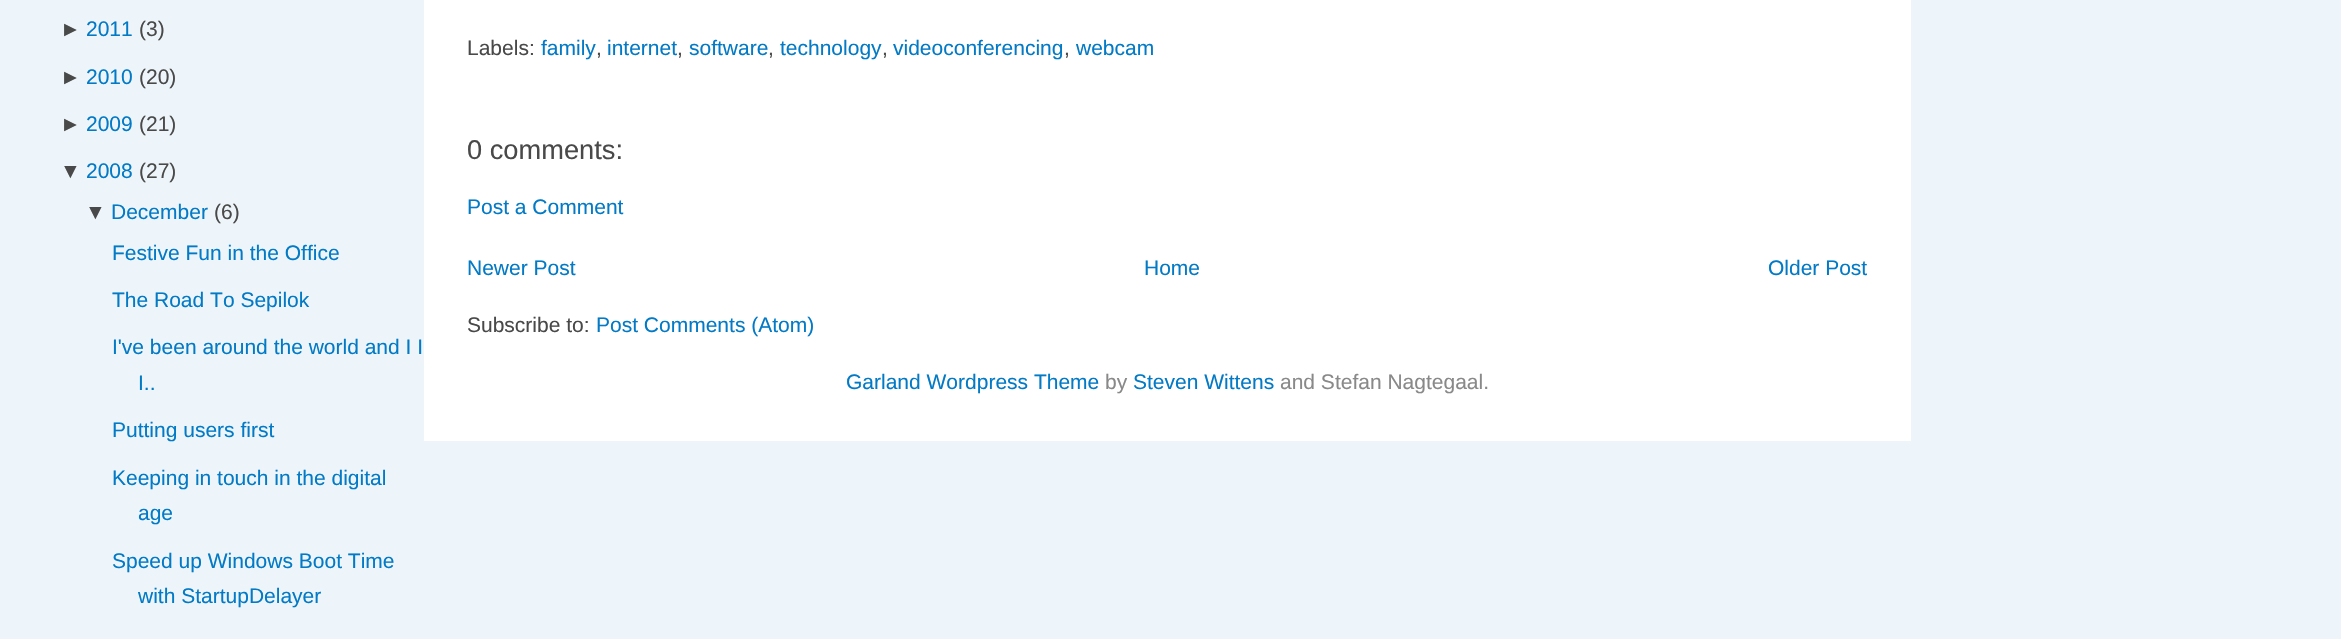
static SkFont makeFont(const char* family, int weight, float size, bool italic = false) {
  SkFontStyle style(weight, SkFontStyle::kNormal_Width,
    italic ? SkFontStyle::kItalic_Slant : SkFontStyle::kUpright_Slant);
  SkFont result(fontMgr->matchFamilyStyle(family, style), size);
  result.setSubpixel(true);
  return result;
}

static void text(SkCanvas* c, const char* s, float x, float y, const SkFont& font, SkColor color) {
  SkPaint ink(SkColor4f::FromColor(color));
  ink.setAntiAlias(true);
  c->drawString(s, x, y, font, ink);
}

static void box(SkCanvas* c, float l, float t, float r, float b, SkColor color) {
  SkPaint ink(SkColor4f::FromColor(color));
  ink.setAntiAlias(true);
  c->drawRect(SkRect::MakeLTRB(l, t, r, b), ink);
}

void draw(SkCanvas* c) {
  SkPaint paint;
  paint.setAntiAlias(true);
  c->clear(0xffedf5fa);
  SkFont face1 = makeFont("Liberation Sans", 400, 21);
  text(c, "►", 60, 36, face1, 0xff494949);
  text(c, "2011", 86, 36, face1, 0xff027ac6);
  text(c, "(3)", 139, 36, face1, 0xff494949);
  text(c, "►", 60, 84, face1, 0xff494949);
  text(c, "2010", 86, 84, face1, 0xff027ac6);
  text(c, "(20)", 139, 84, face1, 0xff494949);
  text(c, "►", 60, 131, face1, 0xff494949);
  text(c, "2009", 86, 131, face1, 0xff027ac6);
  text(c, "(21)", 139, 131, face1, 0xff494949);
  text(c, "▼", 60, 178, face1, 0xff494949);
  text(c, "2008", 86, 178, face1, 0xff027ac6);
  text(c, "(27)", 139, 178, face1, 0xff494949);
  text(c, "▼", 85, 219, face1, 0xff494949);
  text(c, "December", 111, 219, face1, 0xff027ac6);
  text(c, "(6)", 214, 219, face1, 0xff494949);
  text(c, "Festive Fun in the Office", 112, 260, face1, 0xff027ac6);
  text(c, "The Road To Sepilok", 112, 307, face1, 0xff027ac6);
  text(c, "I've been around the world and I I", 112, 354, face1, 0xff027ac6);
  text(c, "I..", 138, 390, face1, 0xff027ac6);
  text(c, "Putting users first", 112, 437, face1, 0xff027ac6);
  text(c, "Keeping in touch in the digital", 112, 485, face1, 0xff027ac6);
  text(c, "age", 138, 520, face1, 0xff027ac6);
  text(c, "Speed up Windows Boot Time", 112, 568, face1, 0xff027ac6);
  text(c, "with StartupDelayer", 138, 603, face1, 0xff027ac6);
  box(c, 424, 0, 1911, 441, 0xffffffff);
  text(c, "Labels:", 467, 55, face1, 0xff494949);
  text(c, "family", 541, 55, face1, 0xff027ac6);
  text(c, ",", 596, 55, face1, 0xff494949);
  text(c, "internet", 607, 55, face1, 0xff027ac6);
  text(c, ",", 677, 55, face1, 0xff494949);
  text(c, "software", 689, 55, face1, 0xff027ac6);
  text(c, ",", 768, 55, face1, 0xff494949);
  text(c, "technology", 780, 55, face1, 0xff027ac6);
  text(c, ",", 882, 55, face1, 0xff494949);
  text(c, "videoconferencing", 893, 55, face1, 0xff027ac6);
  text(c, ",", 1064, 55, face1, 0xff494949);
  text(c, "webcam", 1076, 55, face1, 0xff027ac6);
  SkFont face2 = makeFont("Liberation Sans", 400, 27.25f);
  text(c, "0 comments:", 467, 159, face2, 0xff494949);
  text(c, "Post a Comment", 467, 214, face1, 0xff027ac6);
  text(c, "Newer Post", 467, 275, face1, 0xff027ac6);
  text(c, "Home", 1144, 275, face1, 0xff027ac6);
  text(c, "Older Post", 1768, 275, face1, 0xff027ac6);
  text(c, "Subscribe to:", 467, 332, face1, 0xff494949);
  text(c, "Post Comments (Atom)", 596, 332, face1, 0xff027ac6);
  text(c, "Garland Wordpress Theme", 846, 389, face1, 0xff027ac6);
  text(c, "by", 1105, 389, face1, 0xff898989);
  text(c, "Steven Wittens", 1133, 389, face1, 0xff027ac6);
  text(c, "and Stefan Nagtegaal.", 1280, 389, face1, 0xff898989);
}
